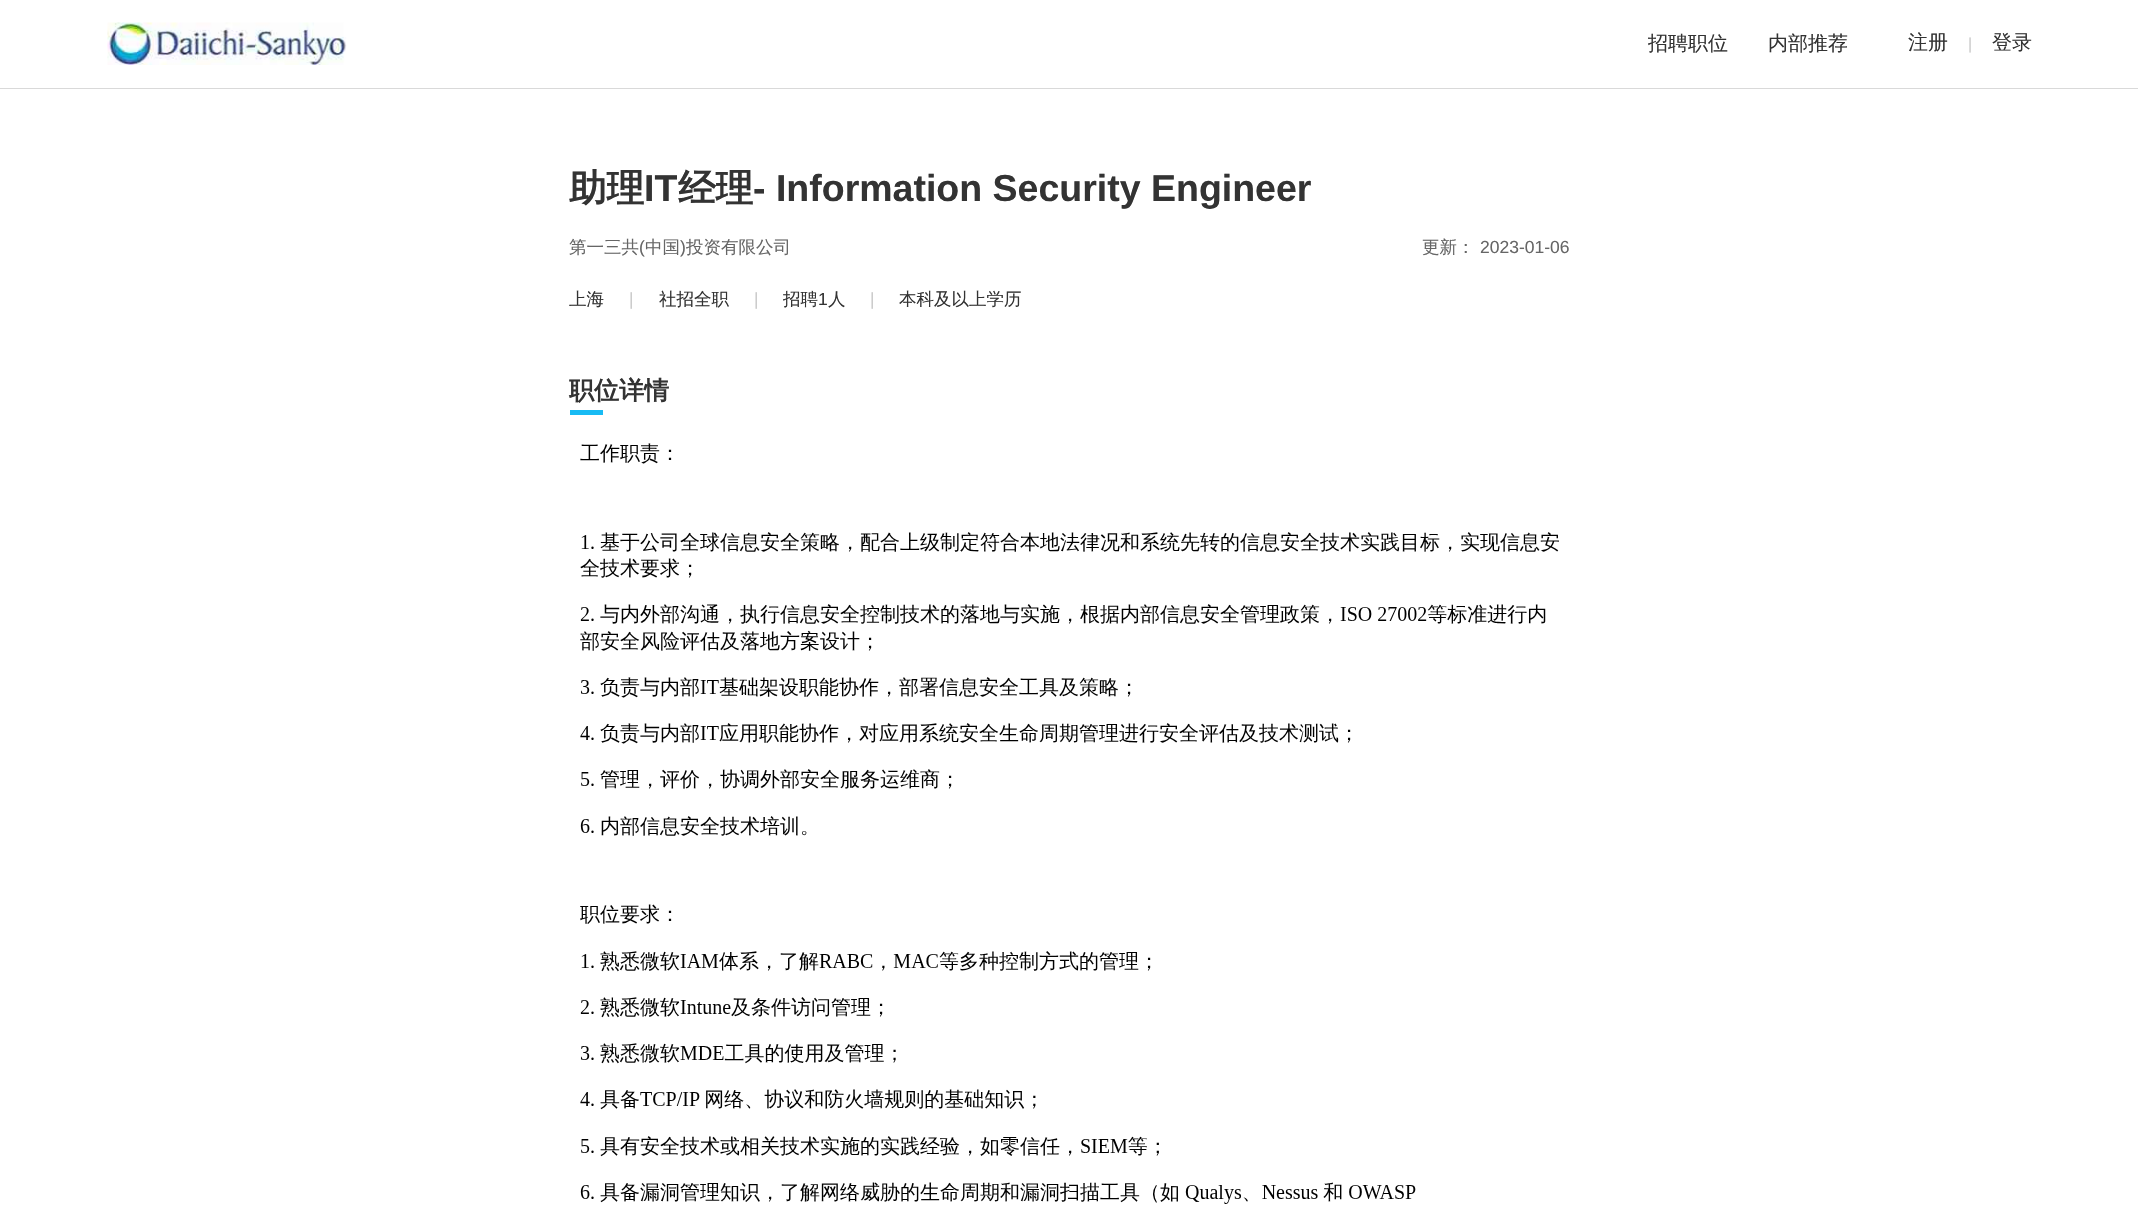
static SkFont makeFont(const char* family, int weight, float size, bool italic = false) {
  SkFontStyle style(weight, SkFontStyle::kNormal_Width,
    italic ? SkFontStyle::kItalic_Slant : SkFontStyle::kUpright_Slant);
  SkFont result(fontMgr->matchFamilyStyle(family, style), size);
  result.setSubpixel(true);
  return result;
}

static void text(SkCanvas* c, const char* s, float x, float y, const SkFont& font, SkColor color) {
  SkPaint ink(SkColor4f::FromColor(color));
  ink.setAntiAlias(true);
  c->drawString(s, x, y, font, ink);
}

static void box(SkCanvas* c, float l, float t, float r, float b, SkColor color) {
  SkPaint ink(SkColor4f::FromColor(color));
  ink.setAntiAlias(true);
  c->drawRect(SkRect::MakeLTRB(l, t, r, b), ink);
}

static void picture(SkCanvas* c, const char* path, float l, float t, float r, float b) {
  auto image = SkImages::DeferredFromEncodedData(SkData::MakeFromFileName(path));
  c->drawImageRect(image, SkRect::MakeLTRB(l, t, r, b), SkSamplingOptions());
}

void draw(SkCanvas* c) {
  SkPaint paint;
  paint.setAntiAlias(true);
  c->clear(0xffffffff);
  box(c, 0, 88, 2138, 89, 0xffd9d9d9);
  picture(c, "img_01.png", 107, 22, 347, 65);
  SkFont face1 = makeFont("WenQuanYi Zen Hei", 500, 20);
  text(c, "招聘职位", 1648, 50, face1, 0xff333333);
  text(c, "内部推荐", 1768, 50, face1, 0xff333333);
  text(c, "注册", 1908, 49, face1, 0xff333333);
  SkFont face2 = makeFont("Liberation Sans", 400, 16);
  text(c, "|", 1968, 49, face2, 0xffcccccc);
  text(c, "登录", 1992, 49, face1, 0xff333333);
  SkFont face3 = makeFont("WenQuanYi Zen Hei", 700, 37.5f);
  text(c, "助理", 569, 201, face3, 0xff333333);
  SkFont face4 = makeFont("Liberation Sans", 700, 37.5f);
  text(c, "IT", 644, 201, face4, 0xff333333);
  text(c, "经理", 678, 201, face3, 0xff333333);
  text(c, "- Information Security Engineer", 753, 201, face4, 0xff333333);
  SkFont face5 = makeFont("WenQuanYi Zen Hei", 500, 17.5f);
  text(c, "第一三共", 569, 253, face5, 0xff666666);
  SkFont face6 = makeFont("Liberation Sans", 400, 17.5f);
  text(c, "(", 639, 253, face6, 0xff666666);
  text(c, "中国", 645, 253, face5, 0xff666666);
  text(c, ")", 680, 253, face6, 0xff666666);
  text(c, "投资有限公司", 686, 253, face5, 0xff666666);
  text(c, "更新：", 1422, 253, face5, 0xff666666);
  text(c, "2023-01-06", 1480, 253, face6, 0xff666666);
  text(c, "上海", 569, 305, face5, 0xff333333);
  text(c, "|", 629, 305, face6, 0xffcccccc);
  text(c, "社招全职", 659, 305, face5, 0xff333333);
  text(c, "|", 754, 305, face6, 0xffcccccc);
  text(c, "招聘", 783, 305, face5, 0xff333333);
  text(c, "1", 818, 305, face6, 0xff333333);
  text(c, "人", 828, 305, face5, 0xff333333);
  text(c, "|", 870, 305, face6, 0xffcccccc);
  text(c, "本科及以上学历", 899, 305, face5, 0xff333333);
  SkFont face7 = makeFont("WenQuanYi Zen Hei", 700, 25);
  text(c, "职位详情", 569, 399, face7, 0xff333333);
  box(c, 570, 410, 603, 415, 0xff18bbf4);
  picture(c, "img_02.png", 580, 443, 1559, 1204);
}
